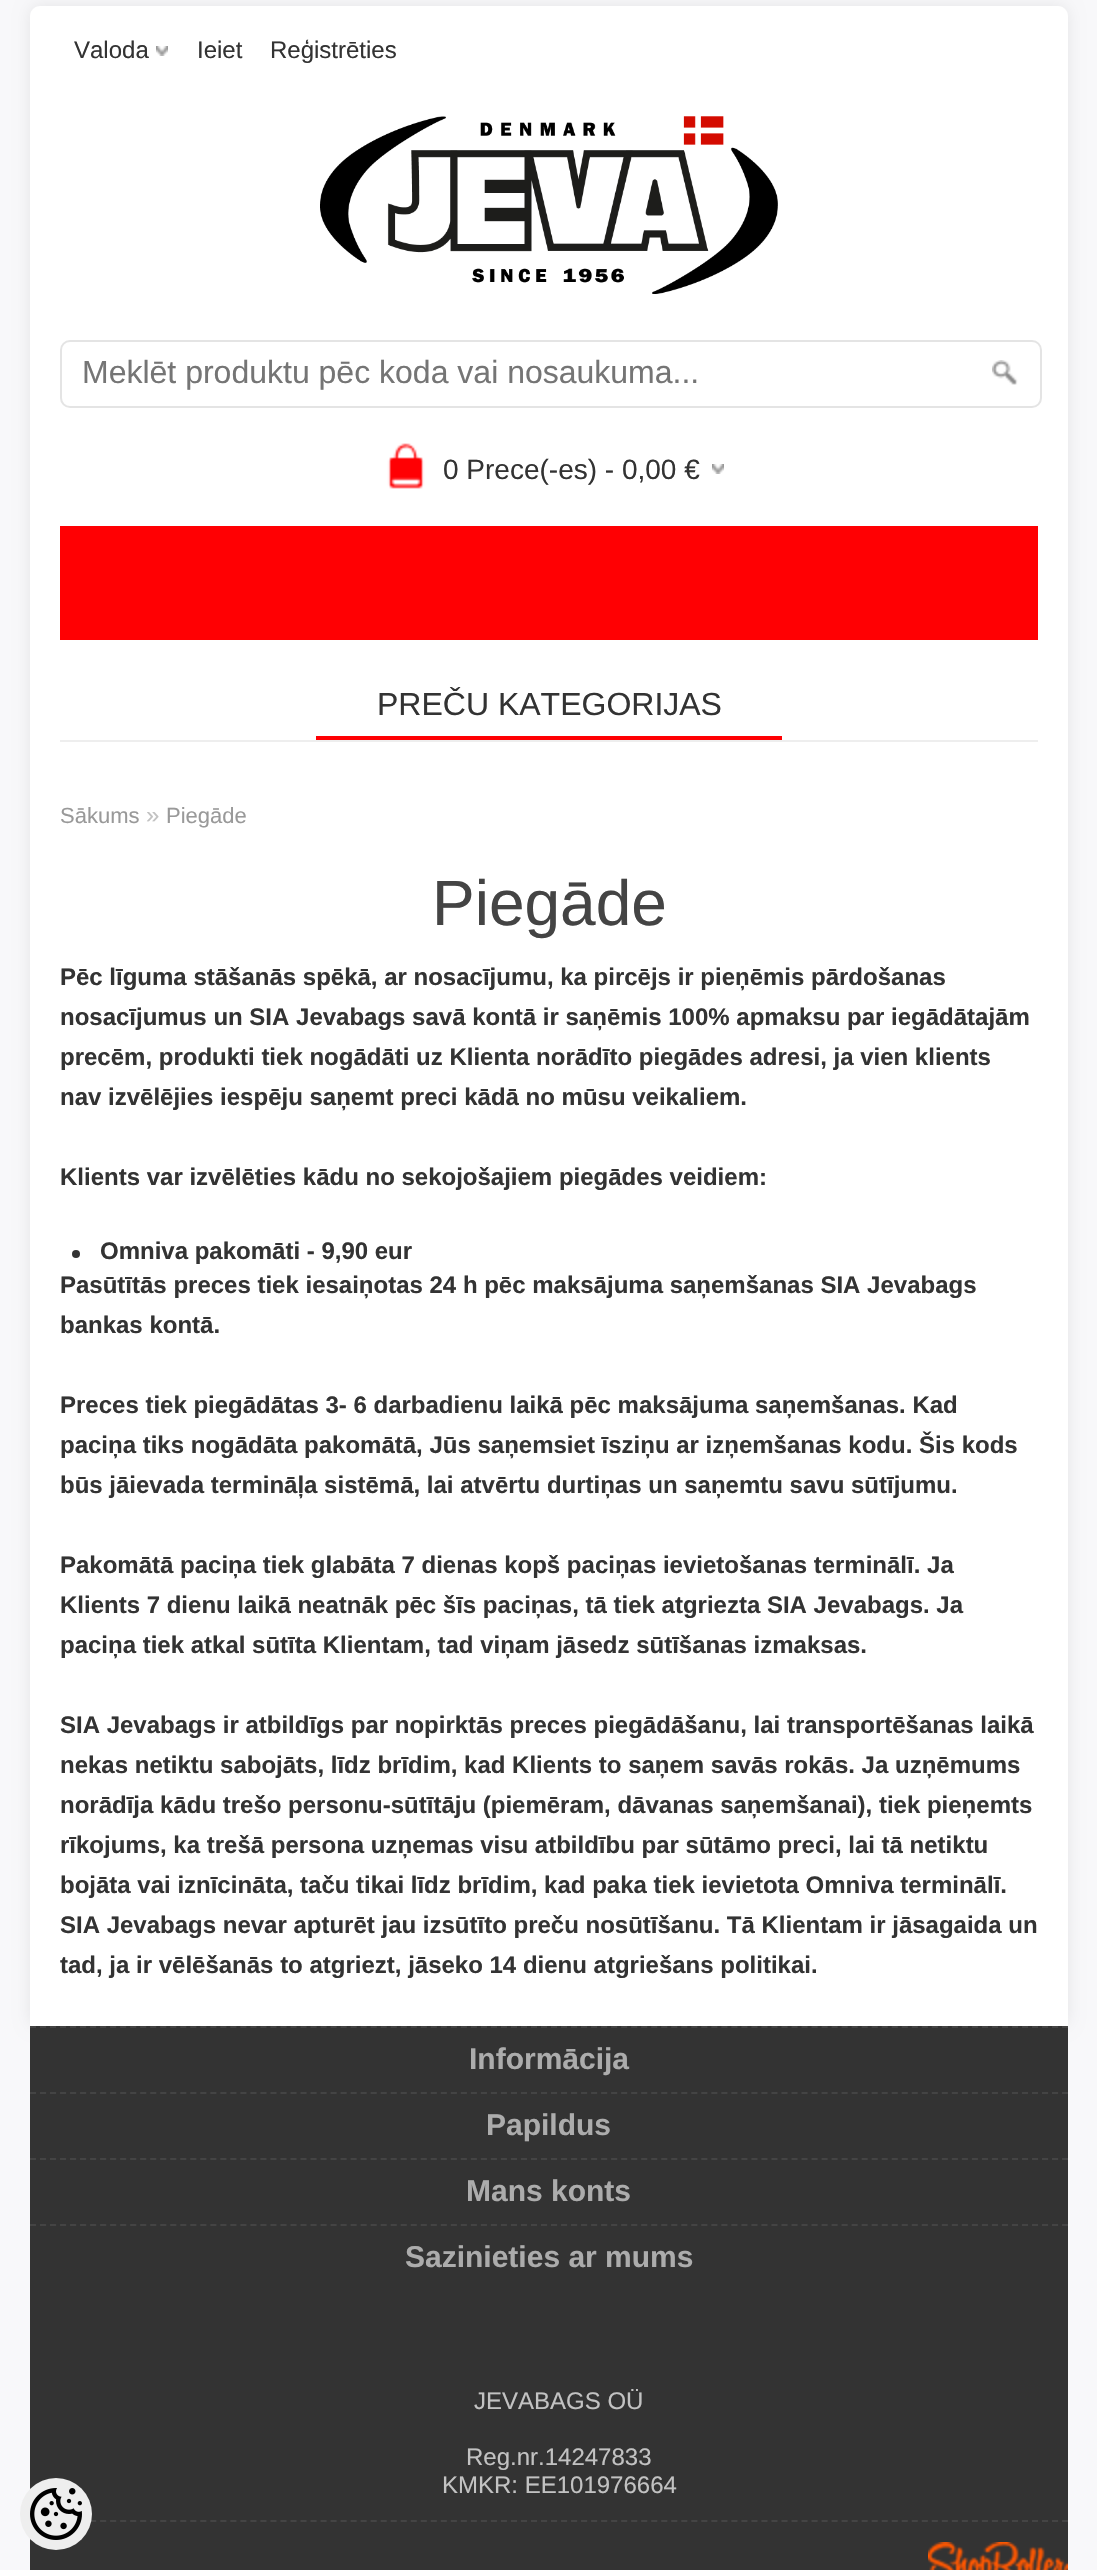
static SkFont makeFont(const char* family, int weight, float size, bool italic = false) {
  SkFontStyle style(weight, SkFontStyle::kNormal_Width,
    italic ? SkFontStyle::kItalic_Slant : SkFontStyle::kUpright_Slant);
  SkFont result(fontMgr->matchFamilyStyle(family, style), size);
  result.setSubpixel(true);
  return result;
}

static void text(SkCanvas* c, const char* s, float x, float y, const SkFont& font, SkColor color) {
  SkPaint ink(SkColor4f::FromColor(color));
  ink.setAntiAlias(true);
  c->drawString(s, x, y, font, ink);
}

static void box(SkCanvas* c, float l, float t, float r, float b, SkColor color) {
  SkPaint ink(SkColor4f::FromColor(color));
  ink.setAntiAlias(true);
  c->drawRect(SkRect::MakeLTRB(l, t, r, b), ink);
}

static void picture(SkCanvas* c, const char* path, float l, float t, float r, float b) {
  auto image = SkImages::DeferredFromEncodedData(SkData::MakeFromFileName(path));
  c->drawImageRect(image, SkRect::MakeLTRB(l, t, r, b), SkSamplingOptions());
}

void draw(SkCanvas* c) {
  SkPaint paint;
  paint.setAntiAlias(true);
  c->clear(0xfff8f8fa);
  paint.setColor(0x14000000);
  paint.setMaskFilter(SkMaskFilter::MakeBlur(kNormal_SkBlurStyle, 8));
  c->drawRoundRect(SkRect::MakeLTRB(30, 6, 1068, 2026), 10, 10, paint);
  paint.setMaskFilter(nullptr);
  paint.setColor(0xffffffff);
  c->drawPath(SkPathBuilder().moveTo(40, 6).lineTo(1058, 6).cubicTo(1063.5f, 6, 1068, 10.5f, 1068, 16).lineTo(1068, 2026).lineTo(30, 2026).lineTo(30, 16).cubicTo(30, 10.5f, 34.5f, 6, 40, 6).close().detach(), paint);
  picture(c, "img_01.png", 156, 46, 168, 56);
  SkFont face1 = makeFont("Liberation Sans", 400, 24);
  text(c, "Valoda", 74, 58, face1, 0xff333333);
  text(c, "Ieiet", 197, 58, face1, 0xff333333);
  text(c, "Reģistrēties", 270, 58, face1, 0xff333333);
  picture(c, "img_02.png", 320, 116, 778, 294);
  paint.setStyle(SkPaint::kStroke_Style);
  paint.setStrokeWidth(2);
  paint.setColor(0xffe4e4e4);
  c->drawRoundRect(SkRect::MakeLTRB(61, 341, 1041, 407), 9, 9, paint);
  SkFont face2 = makeFont("Liberation Sans", 400, 32);
  text(c, "Meklēt produktu pēc koda vai nosaukuma...", 82, 383, face2, 0xff757575);
  picture(c, "img_03.png", 992, 360, 1018, 385);
  box(c, 387, 443, 425, 489, 0xffff0003);
  picture(c, "img_04.png", 374, 436, 438, 500);
  picture(c, "img_01.png", 712, 464, 724, 474);
  SkFont face3 = makeFont("Liberation Sans", 400, 28);
  text(c, "0 Prece(-es) - 0,00 €", 443, 479, face3, 0xff333333);
  box(c, 60, 526, 1038, 640, 0xffff0003);
  box(c, 60, 740, 1038, 742, 0xffeeeeee);
  box(c, 316, 736, 782, 740, 0xffff0003);
  text(c, "PREČU KATEGORIJAS", 377, 715, face2, 0xff333333);
  SkFont face4 = makeFont("Liberation Sans", 400, 22);
  text(c, "Sākums", 60, 823, face4, 0xff999999);
  text(c, "»", 146, 823, face1, 0xffc2c2c2);
  text(c, "Piegāde", 166, 823, face4, 0xff999999);
  SkFont face5 = makeFont("Liberation Sans", 400, 64);
  text(c, "Piegāde", 432, 925, face5, 0xff444444);
  SkFont face6 = makeFont("Liberation Sans", 700, 24);
  text(c, "Pēc līguma stāšanās spēkā, ar nosacījumu, ka pircējs ir pieņēmis pārdošanas", 60, 985, face6, 0xff333333);
  text(c, "nosacījumus un SIA Jevabags savā kontā ir saņēmis 100% apmaksu par iegādātajām", 60, 1025, face6, 0xff333333);
  text(c, "precēm, produkti tiek nogādāti uz Klienta norādīto piegādes adresi, ja vien klients", 60, 1065, face6, 0xff333333);
  text(c, "nav izvēlējies iespēju saņemt preci kādā no mūsu veikaliem.", 60, 1105, face6, 0xff333333);
  text(c, "Klients var izvēlēties kādu no sekojošajiem piegādes veidiem:", 60, 1185, face6, 0xff333333);
  paint.setStyle(SkPaint::kFill_Style);
  paint.setColor(0xff333333);
  c->drawCircle(76, 1254, 4, paint);
  text(c, "Omniva pakomāti - 9,90 eur", 100, 1259, face6, 0xff333333);
  text(c, "Pasūtītās preces tiek iesaiņotas 24 h pēc maksājuma saņemšanas SIA Jevabags", 60, 1293, face6, 0xff333333);
  text(c, "bankas kontā.", 60, 1333, face6, 0xff333333);
  text(c, "Preces tiek piegādātas 3- 6 darbadienu laikā pēc maksājuma saņemšanas. Kad", 60, 1413, face6, 0xff333333);
  text(c, "paciņa tiks nogādāta pakomātā, Jūs saņemsiet īsziņu ar izņemšanas kodu. Šis kods", 60, 1453, face6, 0xff333333);
  text(c, "būs jāievada termināļa sistēmā, lai atvērtu durtiņas un saņemtu savu sūtījumu.", 60, 1493, face6, 0xff333333);
  text(c, "Pakomātā paciņa tiek glabāta 7 dienas kopš paciņas ievietošanas terminālī. Ja", 60, 1573, face6, 0xff333333);
  text(c, "Klients 7 dienu laikā neatnāk pēc šīs paciņas, tā tiek atgriezta SIA Jevabags. Ja", 60, 1613, face6, 0xff333333);
  text(c, "paciņa tiek atkal sūtīta Klientam, tad viņam jāsedz sūtīšanas izmaksas.", 60, 1653, face6, 0xff333333);
  text(c, "SIA Jevabags ir atbildīgs par nopirktās preces piegādāšanu, lai transportēšanas laikā", 60, 1733, face6, 0xff333333);
  text(c, "nekas netiktu sabojāts, līdz brīdim, kad Klients to saņem savās rokās. Ja uzņēmums", 60, 1773, face6, 0xff333333);
  text(c, "norādīja kādu trešo personu-sūtītāju (piemēram, dāvanas saņemšanai), tiek pieņemts", 60, 1813, face6, 0xff333333);
  text(c, "rīkojums, ka trešā persona uzņemas visu atbildību par sūtāmo preci, lai tā netiktu", 60, 1853, face6, 0xff333333);
  text(c, "bojāta vai iznīcināta, taču tikai līdz brīdim, kad paka tiek ievietota Omniva terminālī.", 60, 1893, face6, 0xff333333);
  text(c, "SIA Jevabags nevar apturēt jau izsūtīto preču nosūtīšanu. Tā Klientam ir jāsagaida un", 60, 1933, face6, 0xff333333);
  text(c, "tad, ja ir vēlēšanās to atgriezt, jāseko 14 dienu atgriešans politikai.", 60, 1973, face6, 0xff333333);
  box(c, 30, 2026, 1068, 2570, 0xff333333);
  paint.setStyle(SkPaint::kStroke_Style);
  paint.setColor(0xff444444);
  paint.setPathEffect(SkDashPathEffect::Make({{6, 4.02f}}, 0));
  c->drawPath(SkPathBuilder().moveTo(30, 2027).lineTo(1068, 2027).detach(), paint);
  paint.setPathEffect(nullptr);
  SkFont face7 = makeFont("Liberation Sans", 700, 30);
  text(c, "Informācija", 469, 2069, face7, 0xffacacac);
  paint.setPathEffect(SkDashPathEffect::Make({{6, 4.02f}}, 0));
  c->drawPath(SkPathBuilder().moveTo(30, 2093).lineTo(1068, 2093).detach(), paint);
  paint.setPathEffect(nullptr);
  text(c, "Papildus", 486, 2135, face7, 0xffacacac);
  paint.setPathEffect(SkDashPathEffect::Make({{6, 4.02f}}, 0));
  c->drawPath(SkPathBuilder().moveTo(30, 2159).lineTo(1068, 2159).detach(), paint);
  paint.setPathEffect(nullptr);
  text(c, "Mans konts", 466, 2201, face7, 0xffacacac);
  paint.setPathEffect(SkDashPathEffect::Make({{6, 4.02f}}, 0));
  c->drawPath(SkPathBuilder().moveTo(30, 2225).lineTo(1068, 2225).detach(), paint);
  paint.setPathEffect(nullptr);
  text(c, "Sazinieties ar mums", 405, 2267, face7, 0xffacacac);
  text(c, "JEVABAGS OÜ", 474, 2409, face1, 0xffc2c2c2);
  text(c, "Reg.nr.14247833", 466, 2465, face1, 0xffc2c2c2);
  text(c, "KMKR: EE101976664", 442, 2493, face1, 0xffc2c2c2);
  paint.setPathEffect(SkDashPathEffect::Make({{6, 4.02f}}, 0));
  c->drawPath(SkPathBuilder().moveTo(30, 2521).lineTo(1068, 2521).detach(), paint);
  paint.setPathEffect(nullptr);
  picture(c, "img_05.png", 928, 2542, 1068, 2570);
  paint.setStyle(SkPaint::kFill_Style);
  paint.setColor(0xffeeeeee);
  c->drawCircle(56, 2514, 36, paint);
  picture(c, "img_06.png", 30, 2488, 82, 2540);
}
